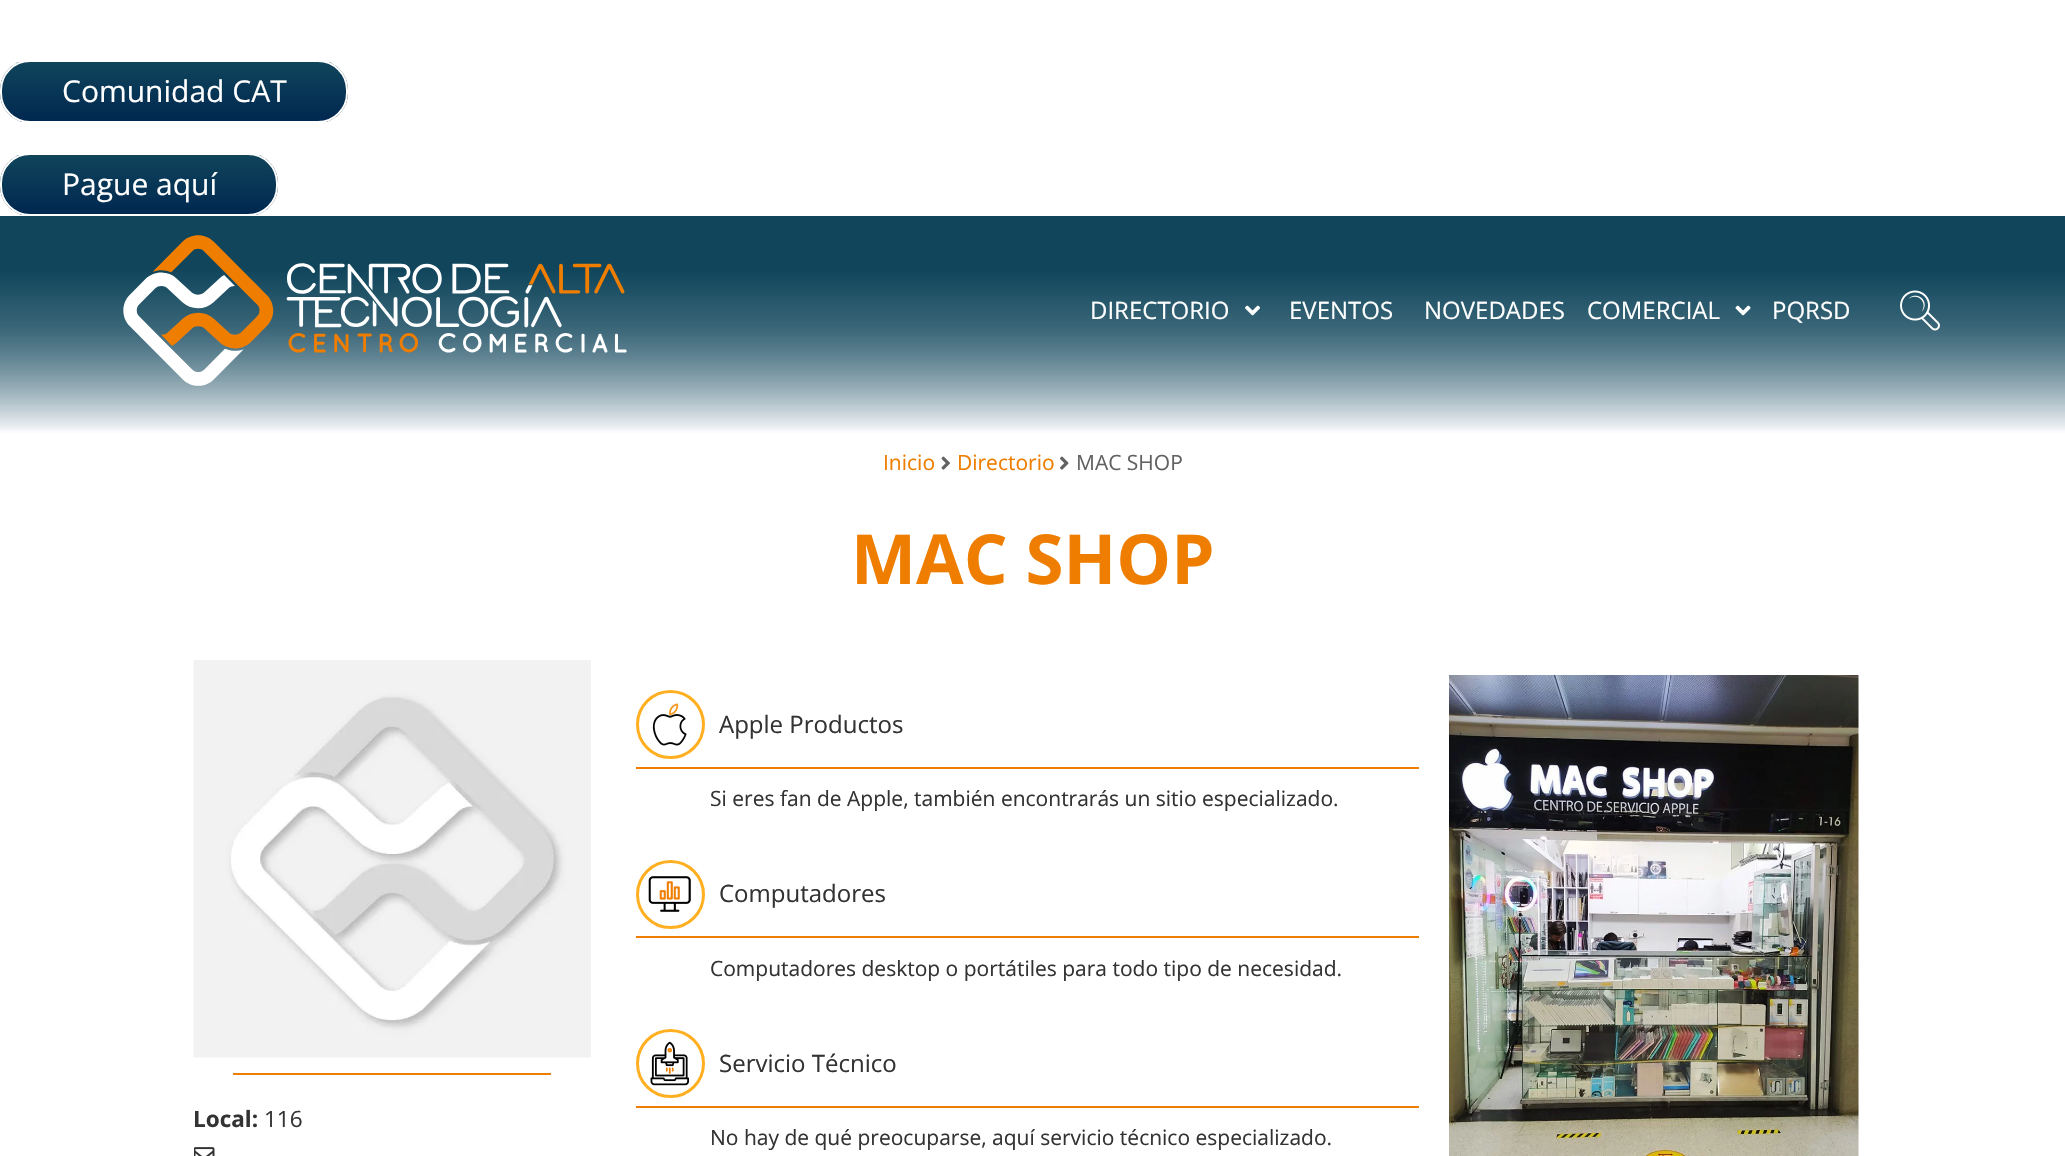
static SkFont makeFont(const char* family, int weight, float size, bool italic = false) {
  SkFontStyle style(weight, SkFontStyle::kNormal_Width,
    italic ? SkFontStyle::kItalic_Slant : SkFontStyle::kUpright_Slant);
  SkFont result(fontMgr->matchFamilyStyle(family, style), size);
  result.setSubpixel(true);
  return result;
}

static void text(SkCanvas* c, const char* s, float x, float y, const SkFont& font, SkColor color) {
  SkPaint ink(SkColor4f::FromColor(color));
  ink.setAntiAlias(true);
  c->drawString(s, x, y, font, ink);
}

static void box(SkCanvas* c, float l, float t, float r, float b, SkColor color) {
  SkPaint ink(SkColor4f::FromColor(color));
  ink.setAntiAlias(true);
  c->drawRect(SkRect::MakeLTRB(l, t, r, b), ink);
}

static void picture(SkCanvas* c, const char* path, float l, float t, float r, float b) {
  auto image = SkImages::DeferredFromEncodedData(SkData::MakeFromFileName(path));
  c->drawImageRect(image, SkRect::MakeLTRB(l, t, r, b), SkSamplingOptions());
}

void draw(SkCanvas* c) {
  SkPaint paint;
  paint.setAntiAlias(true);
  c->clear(0xffffffff);
  c->save();
  c->clipPath(SkPathBuilder().moveTo(30, 60).lineTo(318, 60).cubicTo(334.5f, 60, 348, 73.5f, 348, 90).lineTo(348, 93).cubicTo(348, 109.5f, 334.5f, 123, 318, 123).lineTo(30, 123).cubicTo(13.5f, 123, 0, 109.5f, 0, 93).lineTo(0, 90).cubicTo(0, 73.5f, 13.5f, 60, 30, 60).close().detach(), true);
  {
    const SkColor colors[] = {0xff10455b, 0xff002750};
    const float stops[] = {0, 1};
    const SkPoint ends[] = {{174, 61}, {174, 122}};
    paint.setShader(SkGradientShader::MakeLinear(ends, colors, stops, 2, SkTileMode::kClamp));
    paint.setAlpha(255);
  }
  c->drawRect(SkRect::MakeLTRB(0, 62, 348, 122), paint);
  c->restore();
  paint.setStyle(SkPaint::kStroke_Style);
  paint.setStrokeWidth(2);
  paint.setShader(nullptr);
  paint.setColor(0xffffffff);
  c->drawRoundRect(SkRect::MakeLTRB(1, 61, 347, 122), 29, 29, paint);
  SkFont face1 = makeFont("Open Sans", 400, 30);
  text(c, "Comunidad CAT", 62, 102, face1, 0xffffffff);
  c->save();
  c->clipPath(SkPathBuilder().moveTo(30, 153).lineTo(248, 153).cubicTo(264.5f, 153, 278, 166.5f, 278, 183).lineTo(278, 186).cubicTo(278, 202.5f, 264.5f, 216, 248, 216).lineTo(30, 216).cubicTo(13.5f, 216, 0, 202.5f, 0, 186).lineTo(0, 183).cubicTo(0, 166.5f, 13.5f, 153, 30, 153).close().detach(), true);
  paint.setStyle(SkPaint::kFill_Style);
  {
    const SkColor colors[] = {0xff10455b, 0xff002750};
    const float stops[] = {0, 1};
    const SkPoint ends[] = {{139, 154}, {139, 215}};
    paint.setShader(SkGradientShader::MakeLinear(ends, colors, stops, 2, SkTileMode::kClamp));
    paint.setAlpha(255);
  }
  c->drawRect(SkRect::MakeLTRB(0, 155, 278, 215), paint);
  c->restore();
  paint.setStyle(SkPaint::kStroke_Style);
  paint.setShader(nullptr);
  paint.setColor(0xffffffff);
  c->drawRoundRect(SkRect::MakeLTRB(1, 154, 277, 215), 29, 29, paint);
  text(c, "Pague aquí", 62, 195, face1, 0xffffffff);
  paint.setStyle(SkPaint::kFill_Style);
  {
    const SkColor colors[] = {0xff10455b, 0xffffffff};
    const float stops[] = {0.25f, 1};
    const SkPoint ends[] = {{1033, 216}, {1033, 435}};
    paint.setShader(SkGradientShader::MakeLinear(ends, colors, stops, 2, SkTileMode::kClamp));
    paint.setAlpha(255);
  }
  c->drawRect(SkRect::MakeLTRB(0, 216, 2065, 433), paint);
  {
    const SkColor colors[] = {0x8010455b, 0x0010455b};
    const float stops[] = {0.5f, 1};
    const SkPoint ends[] = {{1033, 216}, {1033, 435}};
    paint.setShader(SkGradientShader::MakeLinear(ends, colors, stops, 2, SkTileMode::kClamp));
    paint.setAlpha(255);
  }
  c->drawRect(SkRect::MakeLTRB(0, 275, 2065, 430), paint);
  picture(c, "img_01.png", 123, 235, 627, 386);
  SkFont face2 = makeFont("Open Sans", 400, 24);
  text(c, "DIRECTORIO", 1090, 319, face2, 0xffffffff);
  picture(c, "img_02.png", 1245, 305, 1260, 316);
  text(c, "EVENTOS", 1289, 319, face2, 0xffffffff);
  text(c, "NOVEDADES", 1424, 319, face2, 0xffffffff);
  text(c, "COMERCIAL", 1587, 319, face2, 0xffffffff);
  picture(c, "img_03.png", 1735, 305, 1751, 316);
  text(c, "PQRSD", 1772, 319, face2, 0xffffffff);
  picture(c, "img_04.png", 1900, 290, 1940, 331);
  SkFont face3 = makeFont("Open Sans", 400, 21);
  text(c, "Inicio", 883, 470, face3, 0xffee7d00);
  picture(c, "img_05.png", 941, 456, 950, 470);
  text(c, "Directorio", 957, 470, face3, 0xffee7d00);
  picture(c, "img_06.png", 1060, 456, 1069, 470);
  text(c, "MAC SHOP", 1076, 470, face3, 0xff626262);
  SkFont face4 = makeFont("Open Sans", 700, 69);
  text(c, "MAC SHOP", 851, 584, face4, 0xffee7d00);
  picture(c, "img_07.png", 193, 660, 591, 1058);
  box(c, 233, 1073, 551, 1075, 0xffee7d00);
  SkFont face5 = makeFont("Open Sans", 700, 22.5f);
  text(c, "Local:", 193, 1127, face5, 0xff333333);
  SkFont face6 = makeFont("Open Sans", 400, 22.5f);
  text(c, "116", 264, 1127, face6, 0xff333333);
  picture(c, "img_08.png", 194, 1147, 215, 1156);
  box(c, 636, 767, 1419, 769, 0xffee7d00);
  paint.setStyle(SkPaint::kStroke_Style);
  paint.setStrokeWidth(3);
  paint.setShader(nullptr);
  paint.setColor(0xffffaf20);
  c->drawCircle(670.5f, 724.5f, 33, paint);
  picture(c, "img_09.png", 652, 703, 687, 746);
  text(c, "Apple Productos", 719, 733, face2, 0xff333333);
  text(c, "Si eres fan de Apple, también encontrarás un sitio especializado.", 710, 806, face3, 0xff333333);
  box(c, 636, 936, 1419, 938, 0xffee7d00);
  c->drawCircle(670.5f, 894.5f, 33, paint);
  picture(c, "img_10.png", 648, 876, 691, 912);
  text(c, "Computadores", 719, 902, face2, 0xff333333);
  text(c, "Computadores desktop o portátiles para todo tipo de necesidad.", 710, 976, face3, 0xff333333);
  box(c, 636, 1106, 1419, 1108, 0xffee7d00);
  c->drawCircle(670.5f, 1063.5f, 33, paint);
  picture(c, "img_11.png", 650, 1041, 689, 1086);
  text(c, "Servicio Técnico", 719, 1072, face2, 0xff333333);
  text(c, "No hay de qué preocuparse, aquí servicio técnico especializado.", 710, 1145, face3, 0xff333333);
  picture(c, "img_12.png", 1449, 675, 1859, 1156);
}
